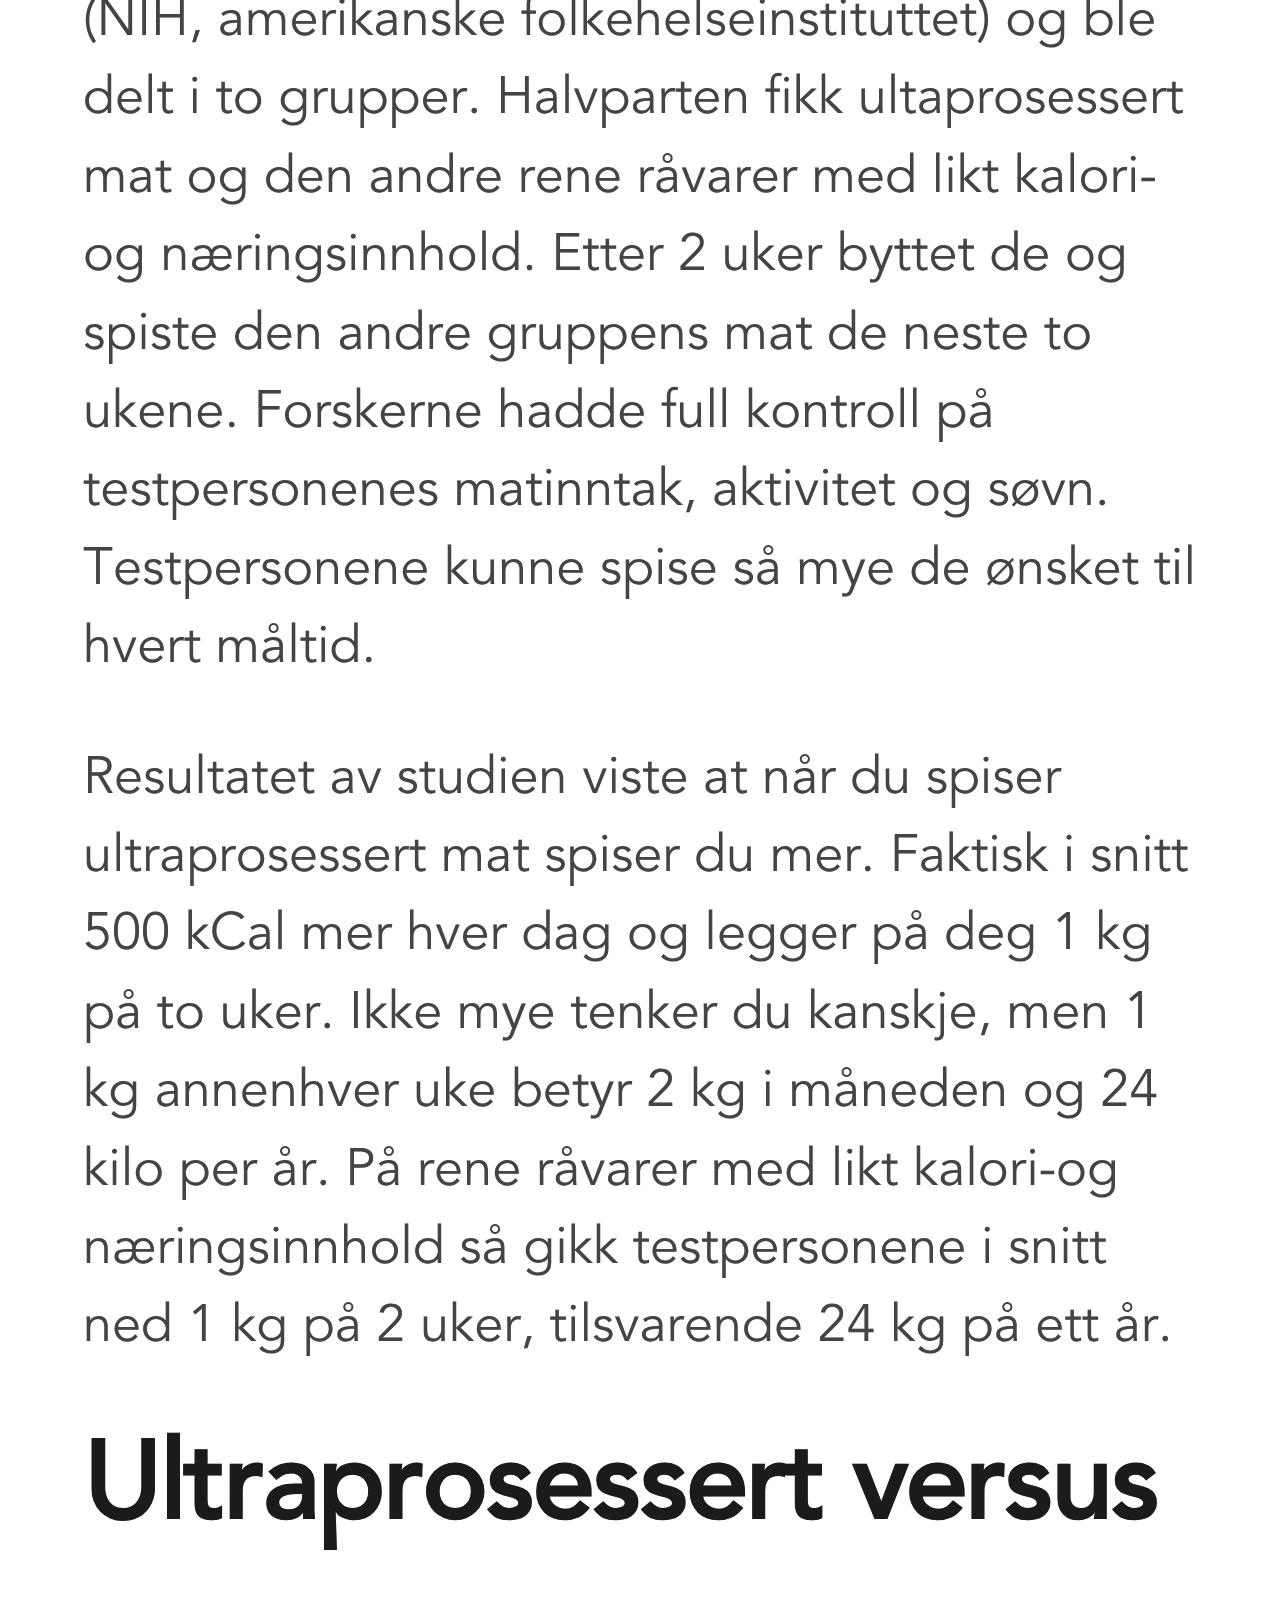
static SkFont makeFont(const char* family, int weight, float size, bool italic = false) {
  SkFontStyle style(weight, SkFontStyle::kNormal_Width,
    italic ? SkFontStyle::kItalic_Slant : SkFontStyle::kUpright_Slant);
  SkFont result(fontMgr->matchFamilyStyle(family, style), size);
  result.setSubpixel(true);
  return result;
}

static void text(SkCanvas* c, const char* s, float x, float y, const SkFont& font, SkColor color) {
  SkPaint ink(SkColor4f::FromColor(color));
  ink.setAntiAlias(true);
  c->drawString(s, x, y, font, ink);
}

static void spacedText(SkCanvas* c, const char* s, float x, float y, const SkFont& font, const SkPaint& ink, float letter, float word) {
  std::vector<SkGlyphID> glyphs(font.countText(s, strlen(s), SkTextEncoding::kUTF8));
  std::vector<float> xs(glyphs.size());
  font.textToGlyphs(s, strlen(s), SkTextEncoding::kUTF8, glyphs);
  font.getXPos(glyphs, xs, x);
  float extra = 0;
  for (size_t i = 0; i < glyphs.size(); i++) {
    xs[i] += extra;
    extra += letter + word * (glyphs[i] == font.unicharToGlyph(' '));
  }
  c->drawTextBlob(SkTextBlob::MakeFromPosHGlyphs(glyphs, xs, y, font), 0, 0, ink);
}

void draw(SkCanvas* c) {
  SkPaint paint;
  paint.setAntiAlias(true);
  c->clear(0xffffffff);
  SkFont face1 = makeFont("Avenir", 400, 52.25f);
  text(c, "(NIH, amerikanske folkehelseinstituttet) og ble", 83, 35, face1, 0xff444444);
  text(c, "delt i to grupper. Halvparten fikk ultaprosessert", 83, 113, face1, 0xff444444);
  text(c, "mat og den andre rene råvarer med likt kalori-", 83, 192, face1, 0xff444444);
  text(c, "og næringsinnhold. Etter 2 uker byttet de og", 83, 270, face1, 0xff444444);
  text(c, "spiste den andre gruppens mat de neste to", 83, 349, face1, 0xff444444);
  text(c, "ukene. Forskerne hadde full kontroll på", 83, 427, face1, 0xff444444);
  text(c, "testpersonenes matinntak, aktivitet og søvn.", 83, 505, face1, 0xff444444);
  text(c, "Testpersonene kunne spise så mye de ønsket til", 83, 584, face1, 0xff444444);
  text(c, "hvert måltid.", 83, 662, face1, 0xff444444);
  text(c, "Resultatet av studien viste at når du spiser", 83, 793, face1, 0xff444444);
  text(c, "ultraprosessert mat spiser du mer. Faktisk i snitt", 83, 871, face1, 0xff444444);
  text(c, "500 kCal mer hver dag og legger på deg 1 kg", 83, 949, face1, 0xff444444);
  text(c, "på to uker. Ikke mye tenker du kanskje, men 1", 83, 1028, face1, 0xff444444);
  text(c, "kg annenhver uke betyr 2 kg i måneden og 24", 83, 1106, face1, 0xff444444);
  text(c, "kilo per år. På rene råvarer med likt kalori-og", 83, 1185, face1, 0xff444444);
  text(c, "næringsinnhold så gikk testpersonene i snitt", 83, 1263, face1, 0xff444444);
  text(c, "ned 1 kg på 2 uker, tilsvarende 24 kg på ett år.", 83, 1341, face1, 0xff444444);
  SkFont face2 = makeFont("Avenir", 700, 110);
  paint.setColor(0xff1a1b1b);
  spacedText(c, "Ultraprosessert versus", 83, 1519, face2, paint, -1.75f, 0);
}
